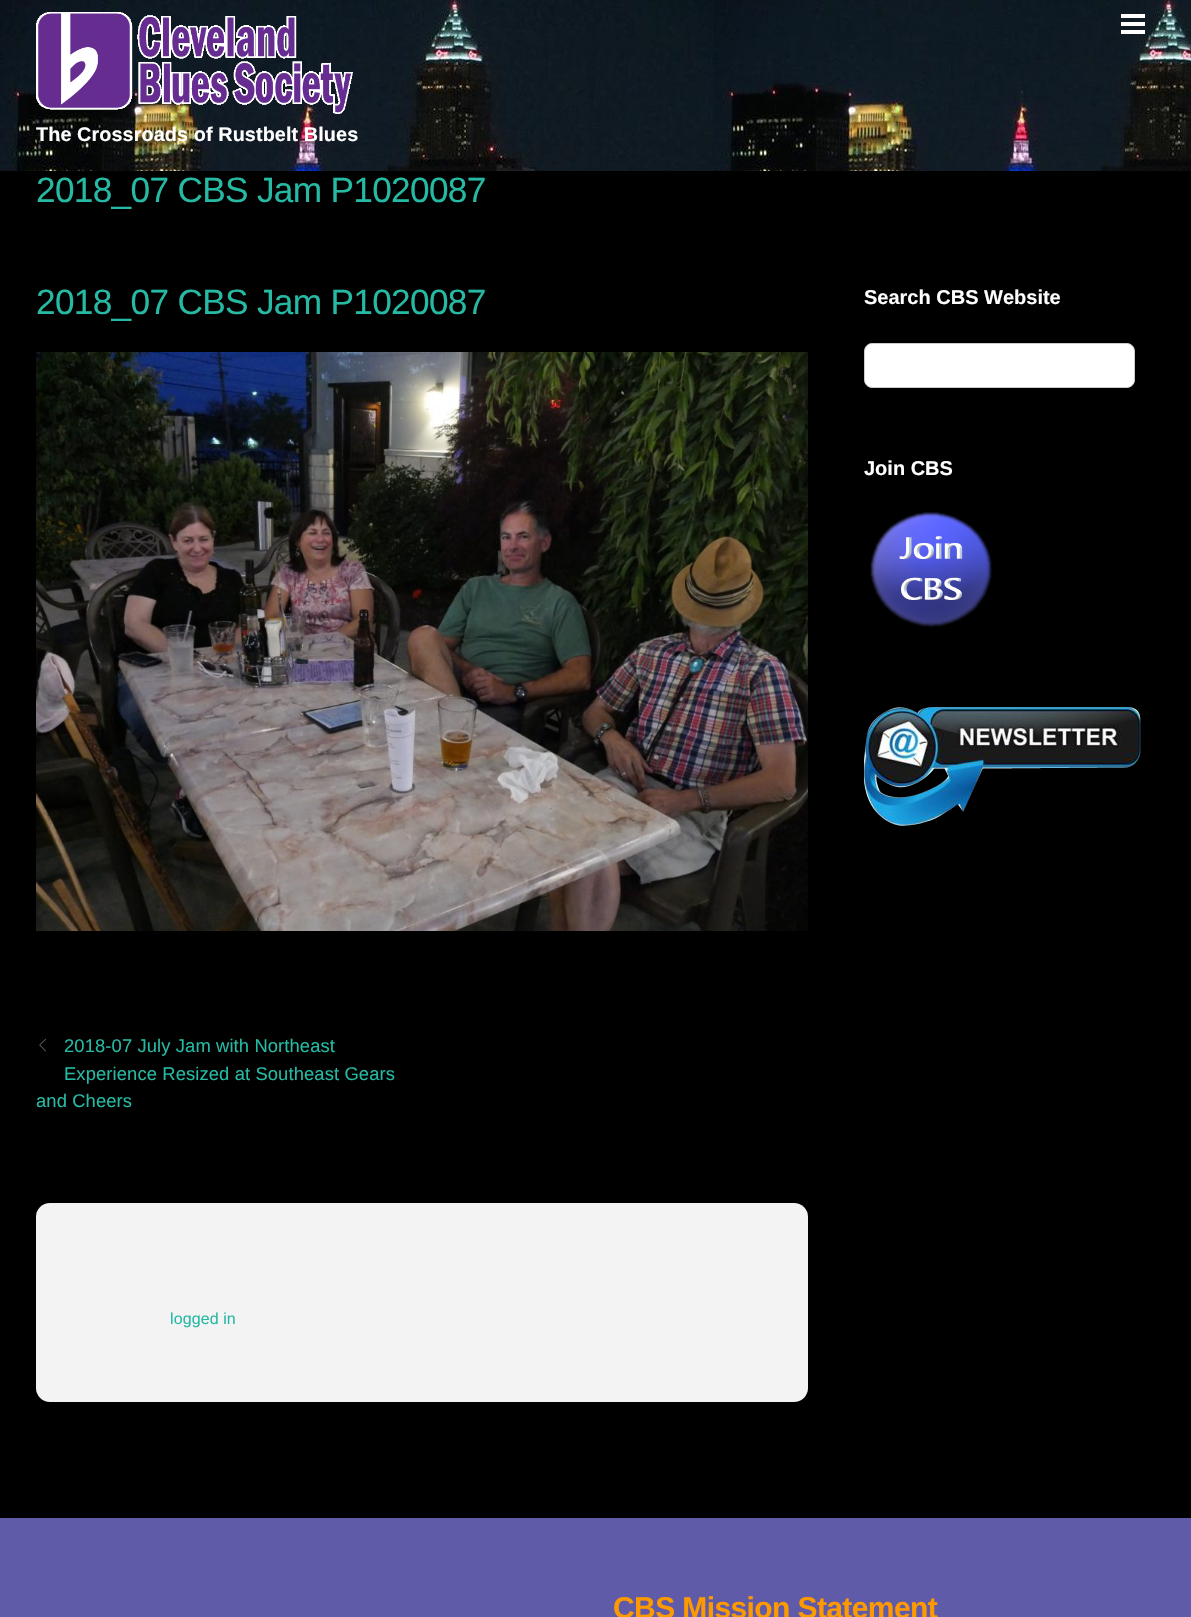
static SkFont makeFont(const char* family, int weight, float size, bool italic = false) {
  SkFontStyle style(weight, SkFontStyle::kNormal_Width,
    italic ? SkFontStyle::kItalic_Slant : SkFontStyle::kUpright_Slant);
  SkFont result(fontMgr->matchFamilyStyle(family, style), size);
  result.setSubpixel(true);
  return result;
}

static void text(SkCanvas* c, const char* s, float x, float y, const SkFont& font, SkColor color) {
  SkPaint ink(SkColor4f::FromColor(color));
  ink.setAntiAlias(true);
  c->drawString(s, x, y, font, ink);
}

static void spacedText(SkCanvas* c, const char* s, float x, float y, const SkFont& font, const SkPaint& ink, float letter, float word) {
  std::vector<SkGlyphID> glyphs(font.countText(s, strlen(s), SkTextEncoding::kUTF8));
  std::vector<float> xs(glyphs.size());
  font.textToGlyphs(s, strlen(s), SkTextEncoding::kUTF8, glyphs);
  font.getXPos(glyphs, xs, x);
  float extra = 0;
  for (size_t i = 0; i < glyphs.size(); i++) {
    xs[i] += extra;
    extra += letter + word * (glyphs[i] == font.unicharToGlyph(' '));
  }
  c->drawTextBlob(SkTextBlob::MakeFromPosHGlyphs(glyphs, xs, y, font), 0, 0, ink);
}

static void box(SkCanvas* c, float l, float t, float r, float b, SkColor color) {
  SkPaint ink(SkColor4f::FromColor(color));
  ink.setAntiAlias(true);
  c->drawRect(SkRect::MakeLTRB(l, t, r, b), ink);
}

static void roundBox(SkCanvas* c, float l, float t, float r, float b, float radius, SkColor color) {
  SkPaint ink(SkColor4f::FromColor(color));
  ink.setAntiAlias(true);
  c->drawRoundRect(SkRect::MakeLTRB(l, t, r, b), radius, radius, ink);
}

static void picture(SkCanvas* c, const char* path, float l, float t, float r, float b) {
  auto image = SkImages::DeferredFromEncodedData(SkData::MakeFromFileName(path));
  c->drawImageRect(image, SkRect::MakeLTRB(l, t, r, b), SkSamplingOptions());
}

void draw(SkCanvas* c) {
  SkPaint paint;
  paint.setAntiAlias(true);
  c->clear(0xff000000);
  picture(c, "img_01.png", 0, 0, 1191, 171);
  box(c, 1121, 14, 1145, 18, 0xffffffff);
  box(c, 1121, 30, 1145, 34, 0xffffffff);
  box(c, 1121, 22, 1145, 26, 0xffffffff);
  picture(c, "img_02.png", 36, 12, 353, 114);
  SkFont face1 = makeFont("Liberation Sans", 700, 19.8f);
  paint.setColor(0xffffffff);
  spacedText(c, "The Crossroads of Rustbelt Blues", 36, 141, face1, paint, 0.1f, 0);
  SkFont face2 = makeFont("Liberation Sans", 400, 35.25f);
  paint.setColor(0xff26b9a3);
  spacedText(c, "2018_07 CBS Jam P1020087", 36, 202, face2, paint, -0.7f, 0);
  spacedText(c, "2018_07 CBS Jam P1020087", 36, 314, face2, paint, -0.7f, 0);
  picture(c, "img_03.png", 36, 352, 808, 931);
  picture(c, "img_04.png", 39, 1038, 46, 1052);
  SkFont face3 = makeFont("Liberation Sans", 400, 18.4f);
  spacedText(c, "2018-07 July Jam with Northeast", 64, 1052, face3, paint, 0.1f, 0);
  spacedText(c, "Experience Resized at Southeast Gears", 64, 1080, face3, paint, 0.1f, 0);
  spacedText(c, "and Cheers", 36, 1107, face3, paint, 0.1f, 0);
  roundBox(c, 36, 1203, 808, 1402, 14, 0xfff3f3f3);
  SkFont face4 = makeFont("Liberation Sans", 400, 16);
  spacedText(c, "logged in", 170, 1324, face4, paint, 0.1f, 0);
  SkFont face5 = makeFont("Liberation Sans", 700, 20);
  text(c, "Search CBS Website", 864, 304, face5, 0xffffffff);
  paint.setColor(0xffffffff);
  c->drawRoundRect(SkRect::MakeLTRB(864.5f, 343.5f, 1134.5f, 387.5f), 7.5f, 7.5f, paint);
  paint.setStyle(SkPaint::kStroke_Style);
  paint.setStrokeWidth(1);
  paint.setColor(0xffcccccc);
  c->drawRoundRect(SkRect::MakeLTRB(864.5f, 343.5f, 1134.5f, 387.5f), 7.5f, 7.5f, paint);
  text(c, "Join CBS", 864, 475, face5, 0xffffffff);
  picture(c, "img_05.png", 870, 512, 993, 628);
  picture(c, "img_06.png", 864, 707, 1141, 826);
  box(c, 0, 1518, 1191, 1617, 0xff605ba8);
  SkFont face6 = makeFont("Liberation Sans", 700, 30);
  paint.setStyle(SkPaint::kFill_Style);
  paint.setColor(0xffff9900);
  spacedText(c, "CBS Mission Statement", 613, 1618, face6, paint, -0.6f, 0);
}
